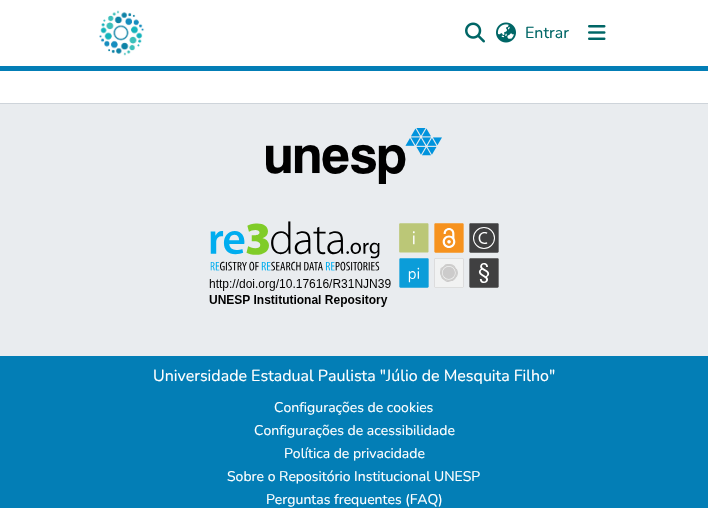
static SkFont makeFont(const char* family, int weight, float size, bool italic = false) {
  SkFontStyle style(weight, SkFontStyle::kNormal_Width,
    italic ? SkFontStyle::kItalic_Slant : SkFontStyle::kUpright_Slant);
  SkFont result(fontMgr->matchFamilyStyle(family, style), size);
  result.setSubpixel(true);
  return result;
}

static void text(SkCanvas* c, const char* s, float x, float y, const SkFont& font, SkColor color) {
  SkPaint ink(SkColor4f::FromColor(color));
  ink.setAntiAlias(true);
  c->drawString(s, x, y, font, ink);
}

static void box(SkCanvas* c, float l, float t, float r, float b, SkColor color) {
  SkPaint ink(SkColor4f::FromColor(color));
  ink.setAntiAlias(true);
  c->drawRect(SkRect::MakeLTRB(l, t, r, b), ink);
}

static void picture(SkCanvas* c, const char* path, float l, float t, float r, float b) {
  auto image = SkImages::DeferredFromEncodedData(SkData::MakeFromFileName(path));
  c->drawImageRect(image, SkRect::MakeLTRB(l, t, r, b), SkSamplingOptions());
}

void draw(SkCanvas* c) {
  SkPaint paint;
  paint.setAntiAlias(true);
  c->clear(0xffffffff);
  box(c, 0, 66, 708, 71, 0xff037eb6);
  picture(c, "img_01.png", 99, 10, 145, 56);
  picture(c, "img_02.png", 465, 22, 485, 43);
  picture(c, "img_03.png", 496, 22, 516, 43);
  SkFont face1 = makeFont("Nunito", 400, 16);
  text(c, "Entrar", 525, 38, face1, 0xff006666);
  picture(c, "img_04.png", 588, 25, 606, 40);
  box(c, 0, 356, 708, 508, 0xff037eb6);
  box(c, 0, 103, 708, 104, 0xffced4da);
  box(c, 0, 104, 708, 356, 0xffe9ecef);
  picture(c, "img_05.png", 266, 128, 442, 184);
  picture(c, "img_06.png", 209, 221, 499, 307);
  text(c, "Universidade Estadual Paulista \"Júlio de Mesquita Filho\"", 153, 381, face1, 0xffffffff);
  SkFont face2 = makeFont("Nunito", 400, 14);
  text(c, "Configurações de cookies", 274, 412, face2, 0xffffffff);
  text(c, "Configurações de acessibilidade", 254, 435, face2, 0xffffffff);
  text(c, "Política de privacidade", 284, 458, face2, 0xffffffff);
  text(c, "Sobre o Repositório Institucional UNESP", 227, 481, face2, 0xffffffff);
  text(c, "Perguntas frequentes (FAQ)", 266, 504, face2, 0xffffffff);
}
